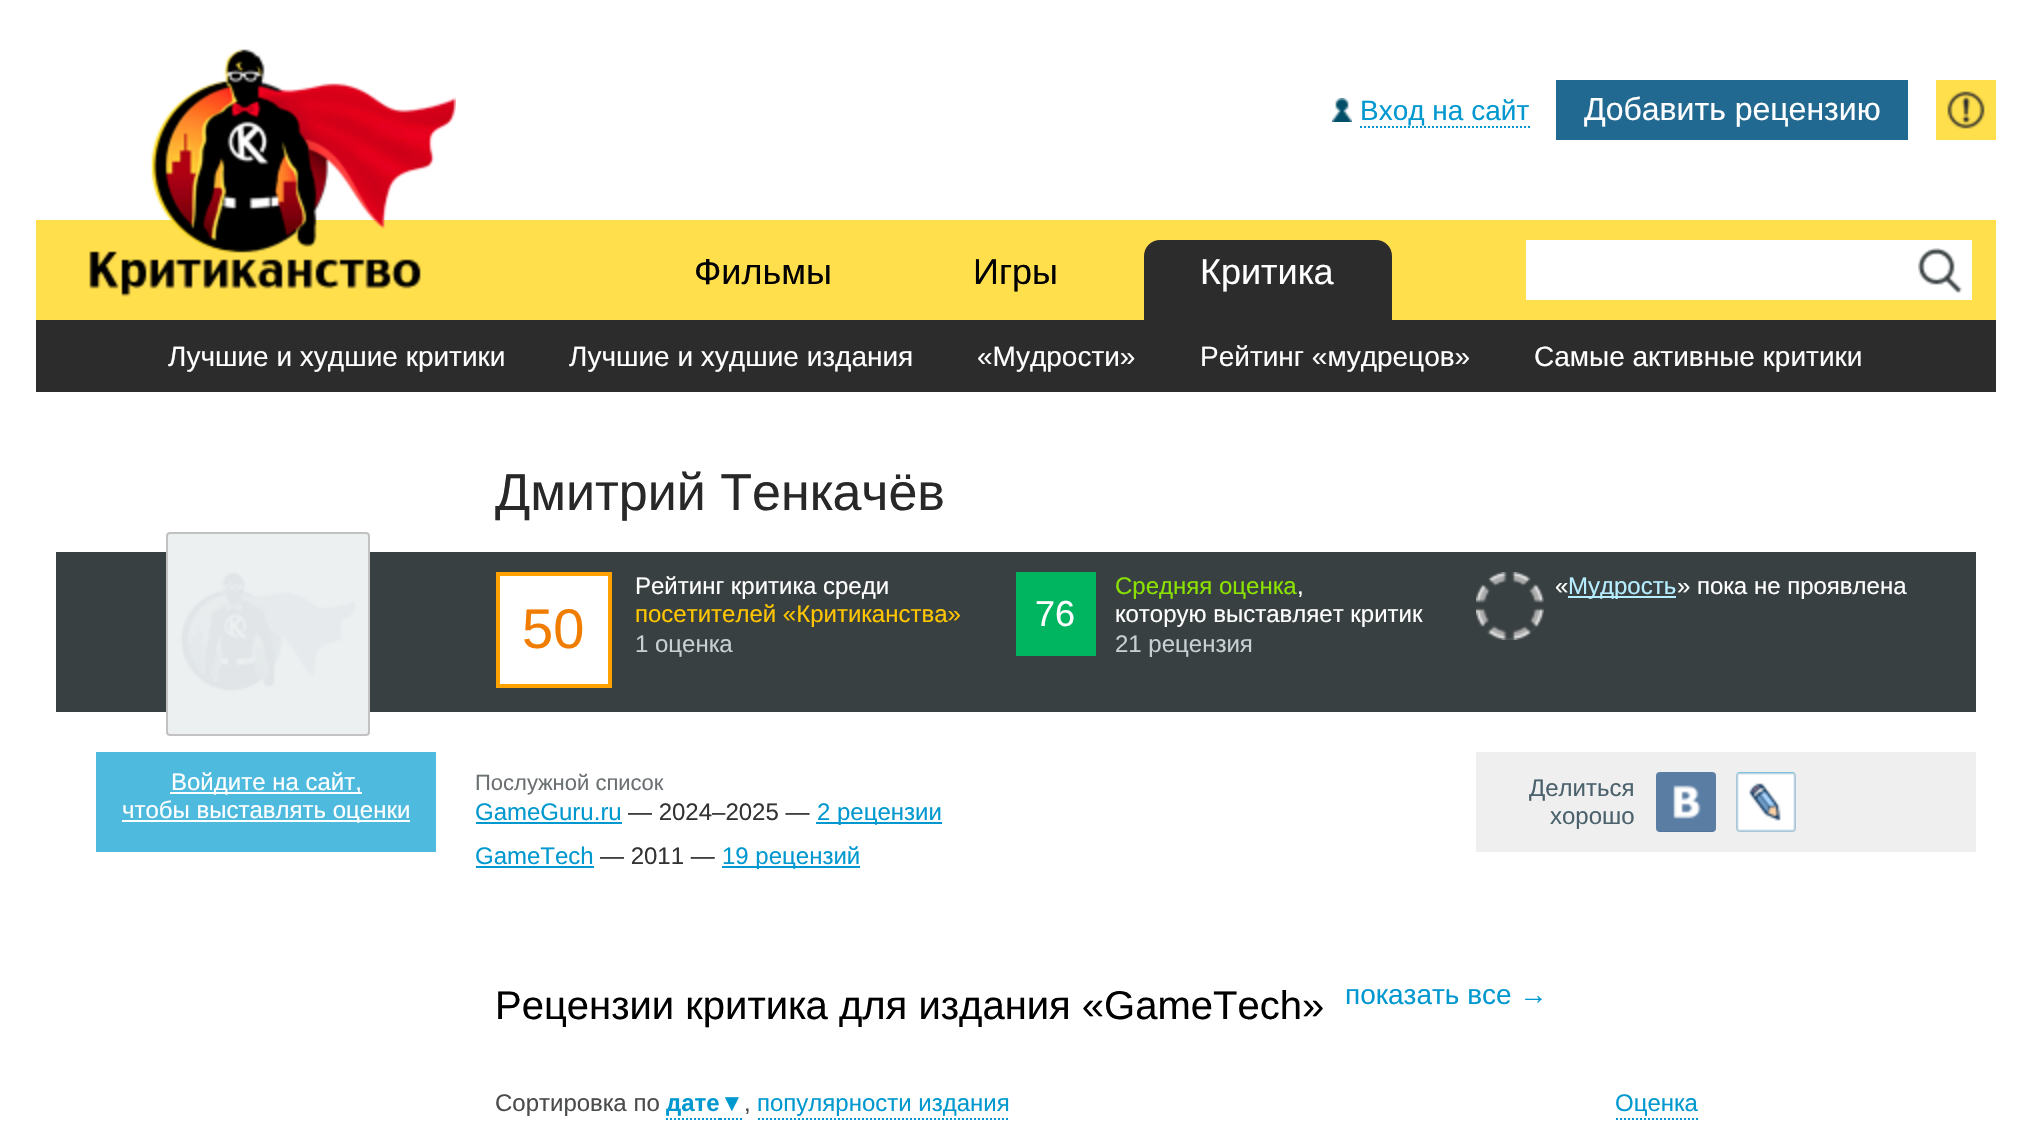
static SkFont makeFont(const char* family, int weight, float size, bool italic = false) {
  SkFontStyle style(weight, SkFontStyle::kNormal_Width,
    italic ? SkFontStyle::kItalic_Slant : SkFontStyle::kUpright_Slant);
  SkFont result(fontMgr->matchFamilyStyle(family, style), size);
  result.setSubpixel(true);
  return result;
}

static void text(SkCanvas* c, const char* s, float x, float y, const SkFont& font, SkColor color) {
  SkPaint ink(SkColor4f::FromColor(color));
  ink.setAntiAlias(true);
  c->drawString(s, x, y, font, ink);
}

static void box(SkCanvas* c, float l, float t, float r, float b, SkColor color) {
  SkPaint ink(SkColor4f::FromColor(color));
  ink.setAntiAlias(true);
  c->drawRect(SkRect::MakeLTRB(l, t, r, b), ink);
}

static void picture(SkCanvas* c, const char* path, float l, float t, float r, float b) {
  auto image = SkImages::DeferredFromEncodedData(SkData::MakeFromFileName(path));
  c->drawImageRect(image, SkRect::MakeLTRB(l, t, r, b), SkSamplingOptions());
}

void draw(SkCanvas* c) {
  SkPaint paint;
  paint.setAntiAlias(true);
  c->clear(0xffffffff);
  picture(c, "img_01.png", 1332, 98, 1352, 122);
  SkFont face1 = makeFont("Liberation Sans", 400, 28);
  text(c, "Вход на сайт", 1360, 120, face1, 0xff0098cf);
  paint.setStyle(SkPaint::kStroke_Style);
  paint.setStrokeWidth(2);
  paint.setColor(0xff0098cf);
  paint.setPathEffect(SkDashPathEffect::Make({{2, 2}}, 0));
  c->drawPath(SkPathBuilder().moveTo(1360, 127).lineTo(1530, 127).detach(), paint);
  paint.setPathEffect(nullptr);
  box(c, 1556, 80, 1908, 140, 0xff216990);
  SkFont face2 = makeFont("Liberation Sans", 400, 32);
  text(c, "Добавить рецензию", 1584, 120, face2, 0xffffffff);
  box(c, 1936, 80, 1996, 140, 0xffffdf4c);
  picture(c, "img_02.png", 1947, 91, 1985, 129);
  box(c, 36, 220, 1996, 320, 0xffffdf4c);
  picture(c, "img_03.png", 89, 49, 456, 297);
  box(c, 1526, 240, 1972, 300, 0xffffffff);
  picture(c, "img_04.png", 1918, 248, 1963, 294);
  paint.setStyle(SkPaint::kFill_Style);
  paint.setColor(0xff2c2c2c);
  c->drawPath(SkPathBuilder().moveTo(1160, 240).lineTo(1376, 240).cubicTo(1385, 240, 1392, 247, 1392, 256).lineTo(1392, 322).lineTo(1144, 322).lineTo(1144, 256).cubicTo(1144, 247, 1151, 240, 1160, 240).close().detach(), paint);
  SkFont face3 = makeFont("Liberation Sans", 400, 36);
  text(c, "Критика", 1200, 284, face3, 0xffffffff);
  box(c, 36, 320, 1996, 392, 0xff2c2c2c);
  text(c, "Лучшие и худшие критики", 168, 366, face1, 0xffffffff);
  text(c, "Лучшие и худшие издания", 569, 366, face1, 0xffffffff);
  text(c, "«Мудрости»", 977, 366, face1, 0xffffffff);
  text(c, "Рейтинг «мудрецов»", 1200, 366, face1, 0xffffffff);
  text(c, "Самые активные критики", 1534, 366, face1, 0xffffffff);
  text(c, "Фильмы", 694, 284, face3, 0xff000000);
  text(c, "Игры", 973, 284, face3, 0xff000000);
  SkFont face4 = makeFont("Liberation Sans", 400, 52);
  text(c, "Дмитрий Тенкачёв", 495, 510, face4, 0xff282828);
  box(c, 56, 552, 1976, 712, 0xff394042);
  picture(c, "img_05.png", 168, 534, 368, 734);
  paint.setStyle(SkPaint::kStroke_Style);
  paint.setColor(0xffc2c2c2);
  c->drawRoundRect(SkRect::MakeLTRB(167, 533, 369, 735), 3, 3, paint);
  SkFont face5 = makeFont("Liberation Sans", 400, 24);
  text(c, "Рейтинг критика среди", 635, 594, face5, 0xffffffff);
  paint.setStyle(SkPaint::kFill_Style);
  paint.setColor(0xffffffff);
  c->drawRect(SkRect::MakeLTRB(498, 574, 610, 686), paint);
  paint.setStyle(SkPaint::kStroke_Style);
  paint.setStrokeWidth(4);
  paint.setColor(0xffffa200);
  c->drawRect(SkRect::MakeLTRB(498, 574, 610, 686), paint);
  SkFont face6 = makeFont("Liberation Sans", 400, 56);
  text(c, "50", 522, 648, face6, 0xfff17d00);
  text(c, "посетителей «Критиканства»", 635, 622, face5, 0xffffc600);
  text(c, "1 оценка", 635, 652, face5, 0xffc7cfd3);
  text(c, "Средняя оценка", 1115, 594, face5, 0xff8ae200);
  text(c, ",", 1297, 594, face5, 0xffffffff);
  box(c, 1016, 572, 1096, 656, 0xff00b55f);
  text(c, "76", 1035, 626, face3, 0xffffffff);
  text(c, "которую выставляет критик", 1115, 622, face5, 0xffffffff);
  text(c, "21 рецензия", 1115, 652, face5, 0xffc7cfd3);
  picture(c, "img_06.png", 1476, 572, 1544, 640);
  text(c, "«", 1555, 594, face5, 0xffffffff);
  box(c, 1568, 596, 1676, 598, 0xffb6edff);
  text(c, "Мудрость", 1568, 594, face5, 0xffb6edff);
  text(c, "» пока не проявлена", 1677, 594, face5, 0xffffffff);
  box(c, 96, 752, 436, 852, 0xff4dbade);
  box(c, 170, 792, 362, 794, 0xffffffff);
  text(c, "Войдите на сайт,", 171, 790, face5, 0xffffffff);
  box(c, 122, 820, 410, 822, 0xffffffff);
  text(c, "чтобы выставлять оценки", 122, 818, face5, 0xffffffff);
  SkFont face7 = makeFont("Liberation Sans", 400, 22);
  text(c, "Послужной список", 475, 790, face7, 0xff6b7072);
  text(c, "GameGuru.ru", 475, 820, face5, 0xff0098cf);
  box(c, 476, 822, 622, 824, 0xff0098cf);
  text(c, "— 2024–2025 —", 628, 820, face5, 0xff333333);
  box(c, 816, 822, 942, 824, 0xff0098cf);
  text(c, "2 рецензии", 817, 820, face5, 0xff0098cf);
  text(c, "GameTech", 475, 864, face5, 0xff0098cf);
  box(c, 476, 866, 594, 868, 0xff0098cf);
  text(c, "— 2011 —", 600, 864, face5, 0xff333333);
  box(c, 722, 866, 860, 868, 0xff0098cf);
  text(c, "19 рецензий", 722, 864, face5, 0xff0098cf);
  box(c, 1476, 752, 1976, 852, 0xffefefef);
  text(c, "Делиться", 1529, 796, face5, 0xff4b616c);
  text(c, "хорошо", 1550, 824, face5, 0xff4b616c);
  picture(c, "img_07.png", 1656, 772, 1716, 832);
  picture(c, "img_08.png", 1736, 772, 1796, 832);
  SkFont face8 = makeFont("Liberation Sans", 400, 40);
  text(c, "Рецензии критика для издания «GameTech»", 495, 1019, face8, 0xff000000);
  text(c, "показать все →", 1345, 1004, face1, 0xff0098cf);
  text(c, "Сортировка по", 495, 1111, face5, 0xff4a4b4c);
  SkFont face9 = makeFont("Liberation Sans", 700, 24);
  text(c, "дате", 666, 1111, face9, 0xff0098cf);
  paint.setStrokeWidth(2);
  paint.setColor(0xff0098cf);
  paint.setPathEffect(SkDashPathEffect::Make({{2, 2}}, 0));
  c->drawPath(SkPathBuilder().moveTo(666, 1119).lineTo(720, 1119).detach(), paint);
  paint.setPathEffect(nullptr);
  paint.setPathEffect(SkDashPathEffect::Make({{2, 2}}, 0));
  c->drawPath(SkPathBuilder().moveTo(720, 1119).lineTo(744, 1119).detach(), paint);
  paint.setPathEffect(nullptr);
  text(c, "▼", 720, 1111, face5, 0xff0098cf);
  text(c, ",", 744, 1111, face5, 0xff4a4b4c);
  text(c, "популярности издания", 757, 1111, face5, 0xff0098cf);
  paint.setPathEffect(SkDashPathEffect::Make({{2, 2}}, 0));
  c->drawPath(SkPathBuilder().moveTo(758, 1119).lineTo(1010, 1119).detach(), paint);
  paint.setPathEffect(nullptr);
  text(c, "Оценка", 1615, 1111, face5, 0xff0098cf);
  paint.setPathEffect(SkDashPathEffect::Make({{2, 2}}, 0));
  c->drawPath(SkPathBuilder().moveTo(1616, 1119).lineTo(1698, 1119).detach(), paint);
  paint.setPathEffect(nullptr);
}
